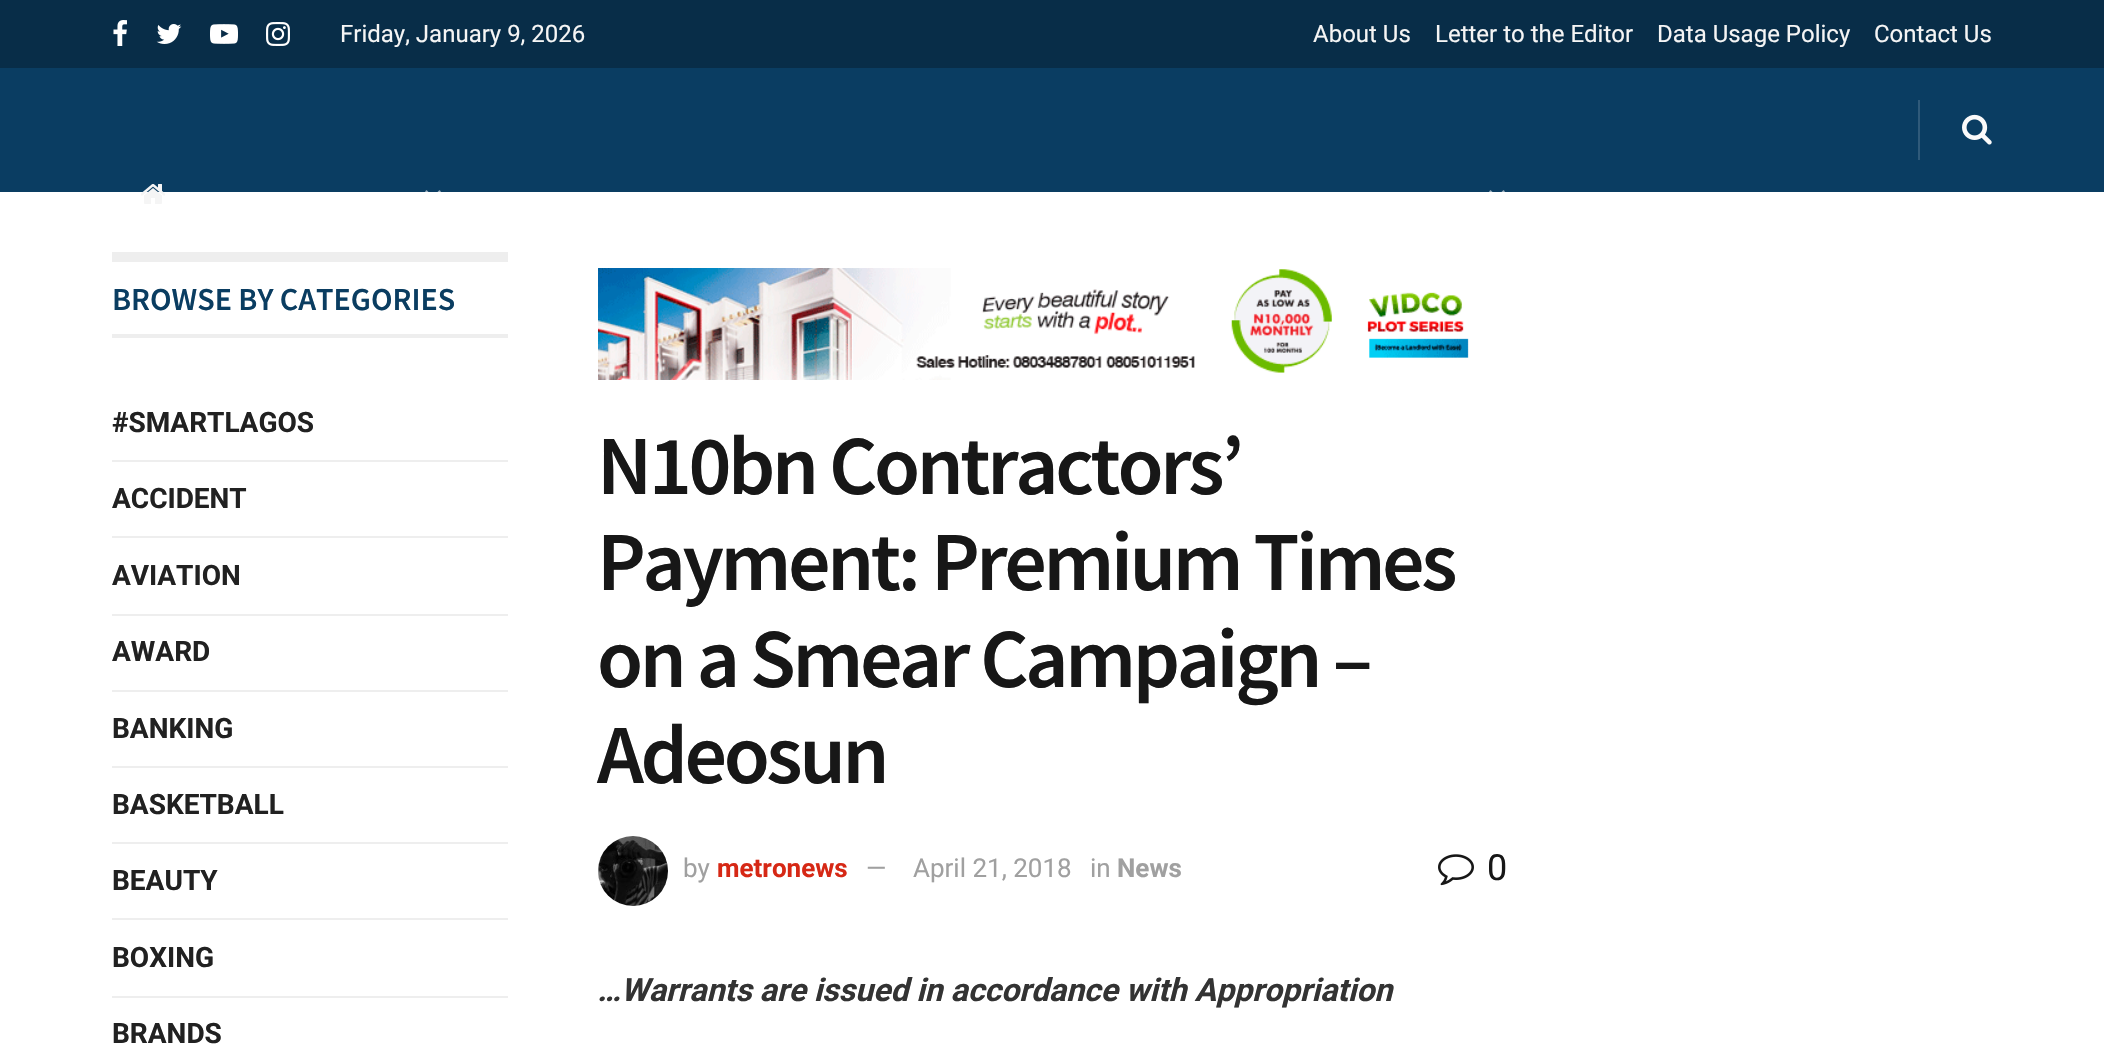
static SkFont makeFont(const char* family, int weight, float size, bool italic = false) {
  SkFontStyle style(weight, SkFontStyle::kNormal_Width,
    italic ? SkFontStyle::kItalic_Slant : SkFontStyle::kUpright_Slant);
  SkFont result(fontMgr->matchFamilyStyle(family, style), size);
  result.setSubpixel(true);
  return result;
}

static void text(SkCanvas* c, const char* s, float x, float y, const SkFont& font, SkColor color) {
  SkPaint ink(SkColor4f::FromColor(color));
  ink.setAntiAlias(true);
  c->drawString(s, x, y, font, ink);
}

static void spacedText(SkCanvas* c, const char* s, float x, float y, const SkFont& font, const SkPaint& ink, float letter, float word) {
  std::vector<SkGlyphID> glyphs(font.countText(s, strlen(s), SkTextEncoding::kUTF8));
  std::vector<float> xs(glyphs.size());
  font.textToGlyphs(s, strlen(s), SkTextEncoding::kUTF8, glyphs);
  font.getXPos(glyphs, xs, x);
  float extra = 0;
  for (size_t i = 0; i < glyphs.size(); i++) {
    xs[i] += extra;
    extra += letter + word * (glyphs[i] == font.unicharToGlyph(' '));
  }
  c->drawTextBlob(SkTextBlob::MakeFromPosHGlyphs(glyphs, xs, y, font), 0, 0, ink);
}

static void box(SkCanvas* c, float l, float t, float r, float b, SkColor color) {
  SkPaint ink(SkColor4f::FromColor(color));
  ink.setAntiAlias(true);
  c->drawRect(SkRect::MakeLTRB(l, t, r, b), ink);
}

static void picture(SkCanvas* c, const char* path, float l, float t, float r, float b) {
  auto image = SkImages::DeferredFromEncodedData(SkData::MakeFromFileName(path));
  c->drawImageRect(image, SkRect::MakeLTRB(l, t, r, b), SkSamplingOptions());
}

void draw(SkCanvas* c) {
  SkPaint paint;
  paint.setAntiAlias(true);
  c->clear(0xffffffff);
  box(c, 0, 0, 2104, 68, 0xff082d48);
  picture(c, "img_01.png", 113, 20, 127, 46);
  picture(c, "img_02.png", 156, 24, 182, 44);
  picture(c, "img_03.png", 210, 24, 238, 44);
  picture(c, "img_04.png", 266, 22, 290, 46);
  SkFont face1 = makeFont("Roboto", 400, 24);
  text(c, "Friday, January 9, 2026", 340, 42, face1, 0xfff5f5f5);
  text(c, "About Us", 1313, 42, face1, 0xfff5f5f5);
  text(c, "Letter to the Editor", 1435, 42, face1, 0xfff5f5f5);
  text(c, "Data Usage Policy", 1657, 42, face1, 0xfff5f5f5);
  text(c, "Contact Us", 1874, 42, face1, 0xfff5f5f5);
  box(c, 0, 68, 2104, 192, 0xff0a3d62);
  box(c, 1918, 100, 1920, 160, 0xff2f5a7a);
  picture(c, "img_05.png", 1962, 114, 1992, 145);
  picture(c, "img_06.png", 141, 184, 165, 204);
  picture(c, "img_07.png", 425, 190, 441, 192);
  picture(c, "img_07.png", 1489, 190, 1505, 192);
  box(c, 112, 252, 508, 262, 0xffeeeeee);
  box(c, 112, 334, 508, 338, 0xffeeeeee);
  SkFont face2 = makeFont("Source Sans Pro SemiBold", 600, 32);
  text(c, "BROWSE BY CATEGORIES", 112, 310, face2, 0xff0a3d61);
  SkFont face3 = makeFont("Roboto", 700, 28);
  text(c, "#SMARTLAGOS", 112, 432, face3, 0xff212121);
  box(c, 112, 460, 508, 462, 0xffeeeeee);
  text(c, "ACCIDENT", 112, 508, face3, 0xff212121);
  box(c, 112, 536, 508, 538, 0xffeeeeee);
  text(c, "AVIATION", 112, 585, face3, 0xff212121);
  box(c, 112, 614, 508, 616, 0xffeeeeee);
  text(c, "AWARD", 112, 661, face3, 0xff212121);
  box(c, 112, 690, 508, 692, 0xffeeeeee);
  text(c, "BANKING", 112, 738, face3, 0xff212121);
  box(c, 112, 766, 508, 768, 0xffeeeeee);
  text(c, "BASKETBALL", 112, 814, face3, 0xff212121);
  box(c, 112, 842, 508, 844, 0xffeeeeee);
  text(c, "BEAUTY", 112, 890, face3, 0xff212121);
  box(c, 112, 918, 508, 920, 0xffeeeeee);
  text(c, "BOXING", 112, 967, face3, 0xff212121);
  box(c, 112, 996, 508, 998, 0xffeeeeee);
  text(c, "BRANDS", 112, 1043, face3, 0xff212121);
  picture(c, "img_08.png", 598, 268, 1469, 380);
  SkFont face4 = makeFont("Source Sans Pro SemiBold", 600, 84);
  paint.setColor(0xff171717);
  spacedText(c, "N10bn Contractors’", 597, 494, face4, paint, -3.4f, 0);
  spacedText(c, "Payment: Premium Times", 597, 590, face4, paint, -3.4f, 0);
  spacedText(c, "on a Smear Campaign –", 597, 687, face4, paint, -3.4f, 0);
  spacedText(c, "Adeosun", 597, 783, face4, paint, -3.4f, 0);
  picture(c, "img_09.png", 598, 836, 668, 906);
  SkFont face5 = makeFont("Roboto", 400, 26);
  text(c, "by", 683, 877, face5, 0xffa0a0a0);
  SkFont face6 = makeFont("Roboto", 700, 26);
  text(c, "metronews", 717, 877, face6, 0xffd62815);
  text(c, "—", 866, 877, face5, 0xffa0a0a0);
  text(c, "April 21, 2018", 913, 877, face5, 0xffa0a0a0);
  text(c, "in", 1090, 877, face5, 0xffa0a0a0);
  text(c, "News", 1117, 877, face6, 0xffa0a0a0);
  picture(c, "img_10.png", 1438, 854, 1474, 886);
  SkFont face7 = makeFont("Roboto", 400, 36);
  text(c, "0", 1487, 880, face7, 0xff171717);
  SkFont face8 = makeFont("Roboto", 700, 32, true);
  text(c, "…Warrants are issued in accordance with Appropriation", 597, 1001, face8, 0xff333333);
}
